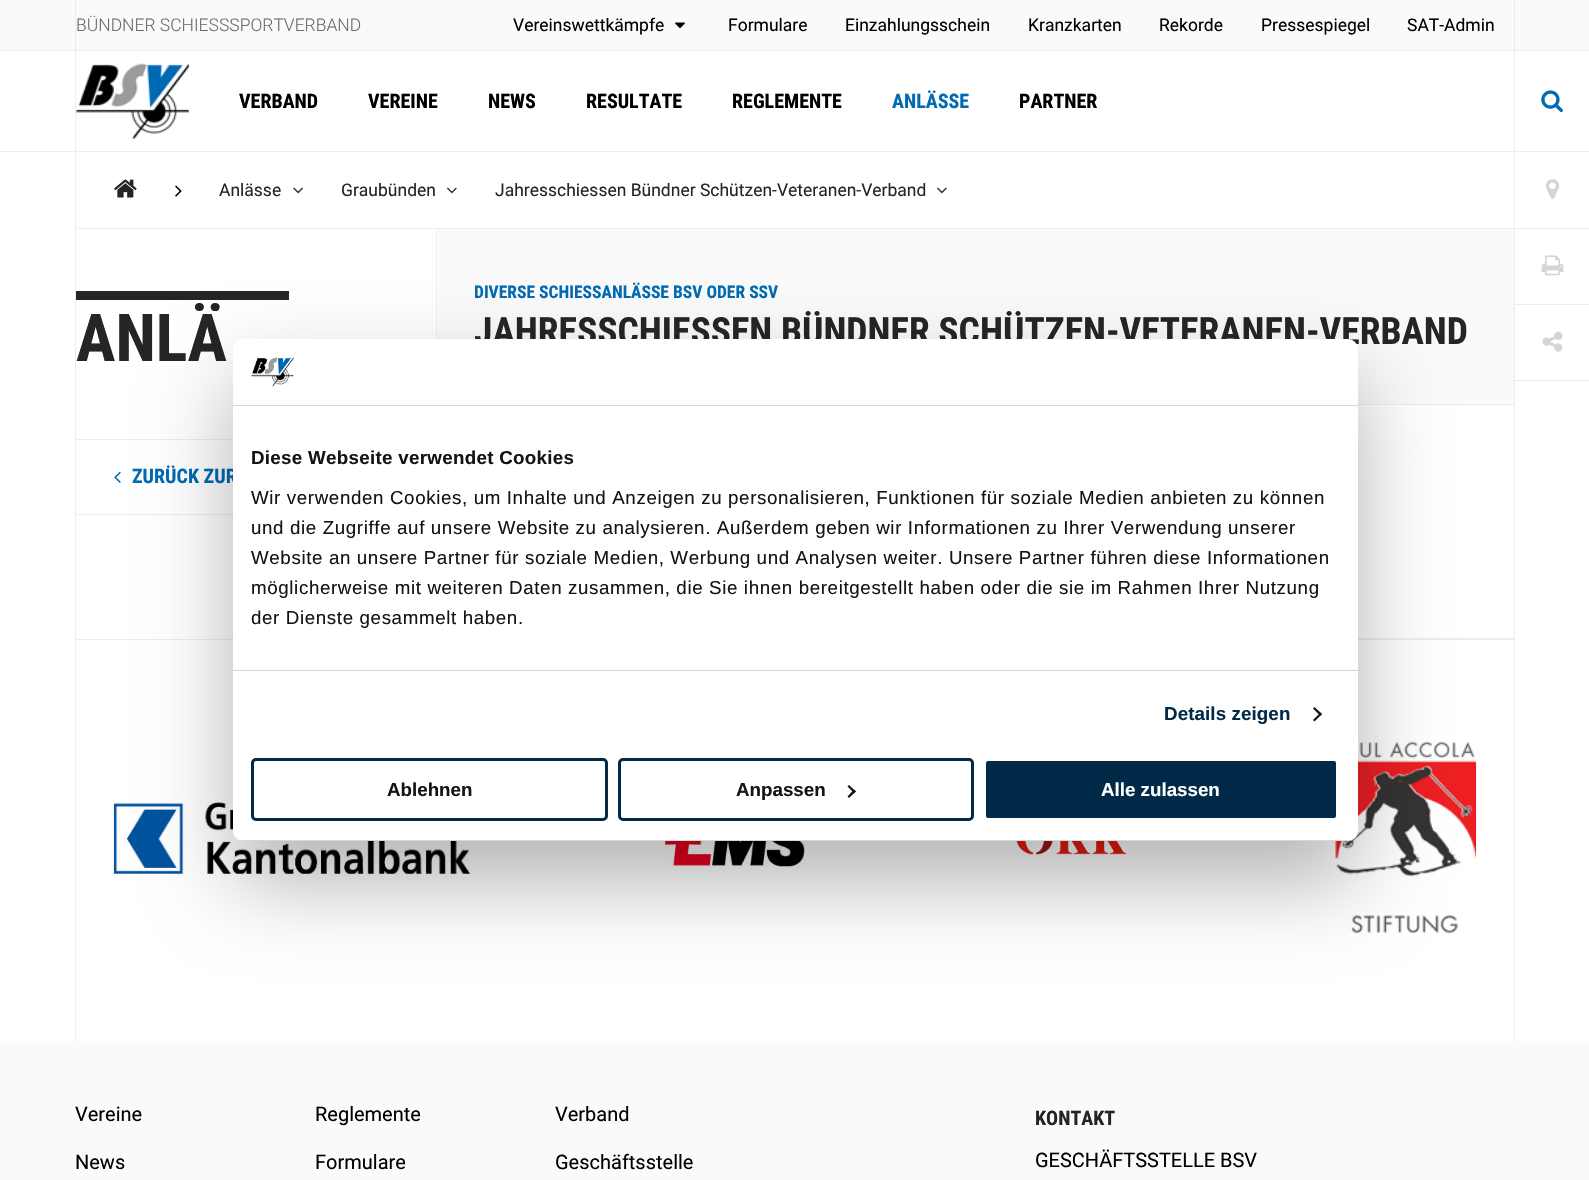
static SkFont makeFont(const char* family, int weight, float size, bool italic = false) {
  SkFontStyle style(weight, SkFontStyle::kNormal_Width,
    italic ? SkFontStyle::kItalic_Slant : SkFontStyle::kUpright_Slant);
  SkFont result(fontMgr->matchFamilyStyle(family, style), size);
  result.setSubpixel(true);
  return result;
}

static void text(SkCanvas* c, const char* s, float x, float y, const SkFont& font, SkColor color) {
  SkPaint ink(SkColor4f::FromColor(color));
  ink.setAntiAlias(true);
  c->drawString(s, x, y, font, ink);
}

static void spacedText(SkCanvas* c, const char* s, float x, float y, const SkFont& font, const SkPaint& ink, float letter, float word) {
  std::vector<SkGlyphID> glyphs(font.countText(s, strlen(s), SkTextEncoding::kUTF8));
  std::vector<float> xs(glyphs.size());
  font.textToGlyphs(s, strlen(s), SkTextEncoding::kUTF8, glyphs);
  font.getXPos(glyphs, xs, x);
  float extra = 0;
  for (size_t i = 0; i < glyphs.size(); i++) {
    xs[i] += extra;
    extra += letter + word * (glyphs[i] == font.unicharToGlyph(' '));
  }
  c->drawTextBlob(SkTextBlob::MakeFromPosHGlyphs(glyphs, xs, y, font), 0, 0, ink);
}

static void box(SkCanvas* c, float l, float t, float r, float b, SkColor color) {
  SkPaint ink(SkColor4f::FromColor(color));
  ink.setAntiAlias(true);
  c->drawRect(SkRect::MakeLTRB(l, t, r, b), ink);
}

static void roundBox(SkCanvas* c, float l, float t, float r, float b, float radius, SkColor color) {
  SkPaint ink(SkColor4f::FromColor(color));
  ink.setAntiAlias(true);
  c->drawRoundRect(SkRect::MakeLTRB(l, t, r, b), radius, radius, ink);
}

static void picture(SkCanvas* c, const char* path, float l, float t, float r, float b) {
  auto image = SkImages::DeferredFromEncodedData(SkData::MakeFromFileName(path));
  c->drawImageRect(image, SkRect::MakeLTRB(l, t, r, b), SkSamplingOptions());
}

void draw(SkCanvas* c) {
  SkPaint paint;
  paint.setAntiAlias(true);
  c->clear(0xffffffff);
  box(c, 0, 0, 1589, 50, 0xfffafafa);
  box(c, 0, 50, 1589, 51, 0xffededed);
  box(c, 1514, 0, 1515, 50, 0xffededed);
  box(c, 75, 0, 76, 50, 0xffededed);
  SkFont face1 = makeFont("Roboto", 300, 17.5f);
  text(c, "BÜNDNER SCHIESSSPORTVERBAND", 76, 31, face1, 0xff6c6c6c);
  SkFont face2 = makeFont("Roboto", 400, 17.5f);
  text(c, "Vereinswettkämpfe", 513, 31, face2, 0xff000000);
  picture(c, "img_01.png", 675, 22, 685, 28);
  text(c, "Formulare", 728, 31, face2, 0xff000000);
  text(c, "Einzahlungsschein", 845, 31, face2, 0xff000000);
  text(c, "Kranzkarten", 1028, 31, face2, 0xff000000);
  text(c, "Rekorde", 1159, 31, face2, 0xff000000);
  text(c, "Pressespiegel", 1261, 31, face2, 0xff000000);
  text(c, "SAT-Admin", 1407, 31, face2, 0xff000000);
  box(c, 0, 151, 1589, 152, 0xffededed);
  box(c, 1514, 51, 1515, 151, 0xffededed);
  box(c, 75, 51, 76, 151, 0xffededed);
  picture(c, "img_02.png", 76, 63, 189, 139);
  SkFont face3 = makeFont("Roboto Condensed", 700, 20);
  text(c, "VERBAND", 239, 108, face3, 0xff000000);
  text(c, "VEREINE", 368, 108, face3, 0xff000000);
  text(c, "NEWS", 488, 108, face3, 0xff000000);
  text(c, "RESULTATE", 586, 108, face3, 0xff000000);
  text(c, "REGLEMENTE", 732, 108, face3, 0xff000000);
  text(c, "ANLÄSSE", 892, 108, face3, 0xff006ab3);
  text(c, "PARTNER", 1019, 108, face3, 0xff000000);
  picture(c, "img_03.png", 1541, 90, 1563, 113);
  box(c, 1514, 153, 1515, 1041, 0xffededed);
  box(c, 75, 639, 1515, 640, 0xffededed);
  box(c, 75, 153, 76, 1041, 0xffededed);
  picture(c, "img_04.png", 114, 179, 137, 198);
  picture(c, "img_05.png", 175, 185, 182, 197);
  text(c, "Anlässe", 219, 196, face2, 0xff252525);
  picture(c, "img_06.png", 293, 187, 303, 194);
  text(c, "Graubünden", 341, 196, face2, 0xff252525);
  picture(c, "img_07.png", 447, 187, 457, 194);
  text(c, "Jahresschiessen Bündner Schützen-Veteranen-Verband", 495, 196, face2, 0xff252525);
  picture(c, "img_07.png", 937, 187, 947, 194);
  box(c, 76, 228, 1514, 229, 0xffededed);
  box(c, 76, 291, 289, 300, 0xff252525);
  SkFont face4 = makeFont("Roboto Condensed", 700, 66);
  text(c, "ANLÄ", 76, 361, face4, 0xff252525);
  box(c, 76, 439, 233, 440, 0xffededed);
  box(c, 76, 514, 233, 515, 0xffededed);
  picture(c, "img_08.png", 114, 471, 121, 483);
  text(c, "ZURÜCK ZUR", 132, 483, face3, 0xff006ab3);
  box(c, 436, 229, 437, 339, 0xffededed);
  box(c, 438, 229, 1514, 404, 0xfffafafa);
  SkFont face5 = makeFont("Roboto Condensed", 700, 17.5f);
  text(c, "DIVERSE SCHIESSANLÄSSE BSV ODER SSV", 474, 298, face5, 0xff006ab3);
  SkFont face6 = makeFont("Roboto Condensed", 700, 37.5f);
  text(c, "JAHRESSCHIESSEN BÜNDNER SCHÜTZEN-VETERANEN-VERBAND", 474, 344, face6, 0xff252525);
  box(c, 1358, 404, 1514, 405, 0xffededed);
  box(c, 1358, 638, 1514, 639, 0xffededed);
  box(c, 1515, 228, 1589, 229, 0xffededed);
  picture(c, "img_09.png", 1545, 179, 1560, 199);
  box(c, 1515, 304, 1589, 305, 0xffededed);
  picture(c, "img_10.png", 1541, 255, 1564, 276);
  box(c, 1515, 380, 1589, 381, 0xffededed);
  picture(c, "img_11.png", 1542, 331, 1563, 352);
  picture(c, "img_13.png", 113, 801, 470, 874);
  picture(c, "img_14.png", 665, 841, 805, 867);
  picture(c, "img_15.png", 1016, 841, 1127, 855);
  picture(c, "img_16.png", 1335, 741, 1477, 934);
  paint.setColor(0x4d000000);
  paint.setMaskFilter(SkMaskFilter::MakeBlur(kNormal_SkBlurStyle, 42.5f));
  c->drawRoundRect(SkRect::MakeLTRB(233, 379, 1358, 881), 10, 10, paint);
  paint.setMaskFilter(nullptr);
  roundBox(c, 233, 339, 1358, 841, 10, 0xffffffff);
  box(c, 233, 405, 1358, 406, 0xffd6d6d6);
  picture(c, "img_12.png", 251, 357, 294, 387);
  box(c, 233, 670, 1358, 671, 0xffd6d6d6);
  SkFont face7 = makeFont("Liberation Sans", 700, 18.75f);
  paint.setColor(0xff141414);
  spacedText(c, "Diese Webseite verwendet Cookies", 251, 464, face7, paint, 0.3f, 0);
  SkFont face8 = makeFont("Liberation Sans", 400, 18.75f);
  spacedText(c, "Wir verwenden Cookies, um Inhalte und Anzeigen zu personalisieren, Funktionen für soziale Medien anbieten zu können", 251, 504, face8, paint, 0.62f, 0);
  spacedText(c, "und die Zugriffe auf unsere Website zu analysieren. Außerdem geben wir Informationen zu Ihrer Verwendung unserer", 251, 534, face8, paint, 0.62f, 0);
  spacedText(c, "Website an unsere Partner für soziale Medien, Werbung und Analysen weiter. Unsere Partner führen diese Informationen", 251, 564, face8, paint, 0.62f, 0);
  spacedText(c, "möglicherweise mit weiteren Daten zusammen, die Sie ihnen bereitgestellt haben oder die sie im Rahmen Ihrer Nutzung", 251, 594, face8, paint, 0.62f, 0);
  spacedText(c, "der Dienste gesammelt haben.", 251, 624, face8, paint, 0.62f, 0);
  paint.setColor(0xff002a48);
  spacedText(c, "Details zeigen", 1164, 720, face7, paint, 0.1f, 0);
  paint.setColor(0xff141414);
  c->drawPath(SkPathBuilder().moveTo(1314.5f, 707).lineTo(1322, 714).lineTo(1320.5f, 716).lineTo(1313, 708.5f).close().detach(), paint);
  c->drawPath(SkPathBuilder().moveTo(1320.5f, 712.5f).lineTo(1322, 714).lineTo(1314.5f, 721.5f).lineTo(1313, 720).close().detach(), paint);
  c->save();
  c->clipPath(SkPathBuilder().moveTo(243, 339).lineTo(1348, 339).cubicTo(1353.5f, 339, 1358, 343.5f, 1358, 349).lineTo(1358, 831).cubicTo(1358, 836.5f, 1353.5f, 841, 1348, 841).lineTo(243, 841).cubicTo(237.5f, 841, 233, 836.5f, 233, 831).lineTo(233, 349).cubicTo(233, 343.5f, 237.5f, 339, 243, 339).close().detach(), true);
  box(c, 233, 840, 1358, 841, 0xffd6d6d6);
  c->restore();
  paint.setStyle(SkPaint::kStroke_Style);
  paint.setStrokeWidth(3);
  paint.setColor(0xff002a48);
  c->drawRoundRect(SkRect::MakeLTRB(252.5f, 759.5f, 606.5f, 819.5f), 3.5f, 3.5f, paint);
  text(c, "Ablehnen", 387, 796, face7, 0xff141414);
  c->drawRoundRect(SkRect::MakeLTRB(619.5f, 759.5f, 972.5f, 819.5f), 3.5f, 3.5f, paint);
  text(c, "Anpassen", 736, 796, face7, 0xff141414);
  paint.setStyle(SkPaint::kFill_Style);
  paint.setColor(0xff141414);
  c->drawPath(SkPathBuilder().moveTo(849, 785).lineTo(856, 791.5f).lineTo(854, 793).lineTo(847.5f, 786.5f).close().detach(), paint);
  c->drawPath(SkPathBuilder().moveTo(854, 789.5f).lineTo(856, 791.5f).lineTo(849, 798).lineTo(847.5f, 796.5f).close().detach(), paint);
  paint.setColor(0xff002a48);
  c->drawRoundRect(SkRect::MakeLTRB(984.5f, 759.5f, 1337.5f, 819.5f), 3.5f, 3.5f, paint);
  paint.setStyle(SkPaint::kStroke_Style);
  paint.setColor(0xffffffff);
  c->drawRoundRect(SkRect::MakeLTRB(984.5f, 759.5f, 1337.5f, 819.5f), 3.5f, 3.5f, paint);
  text(c, "Alle zulassen", 1101, 796, face7, 0xffffffff);
  box(c, 0, 1041, 1589, 1180, 0xfffafafa);
  SkFont face9 = makeFont("Roboto", 400, 20);
  text(c, "Vereine", 75, 1121, face9, 0xff000000);
  text(c, "News", 75, 1169, face9, 0xff000000);
  text(c, "Reglemente", 315, 1121, face9, 0xff000000);
  text(c, "Formulare", 315, 1169, face9, 0xff000000);
  text(c, "Verband", 555, 1121, face9, 0xff000000);
  text(c, "Geschäftsstelle", 555, 1169, face9, 0xff000000);
  text(c, "KONTAKT", 1035, 1125, face3, 0xff252525);
  text(c, "GESCHÄFTSSTELLE BSV", 1035, 1167, face9, 0xff000000);
}
